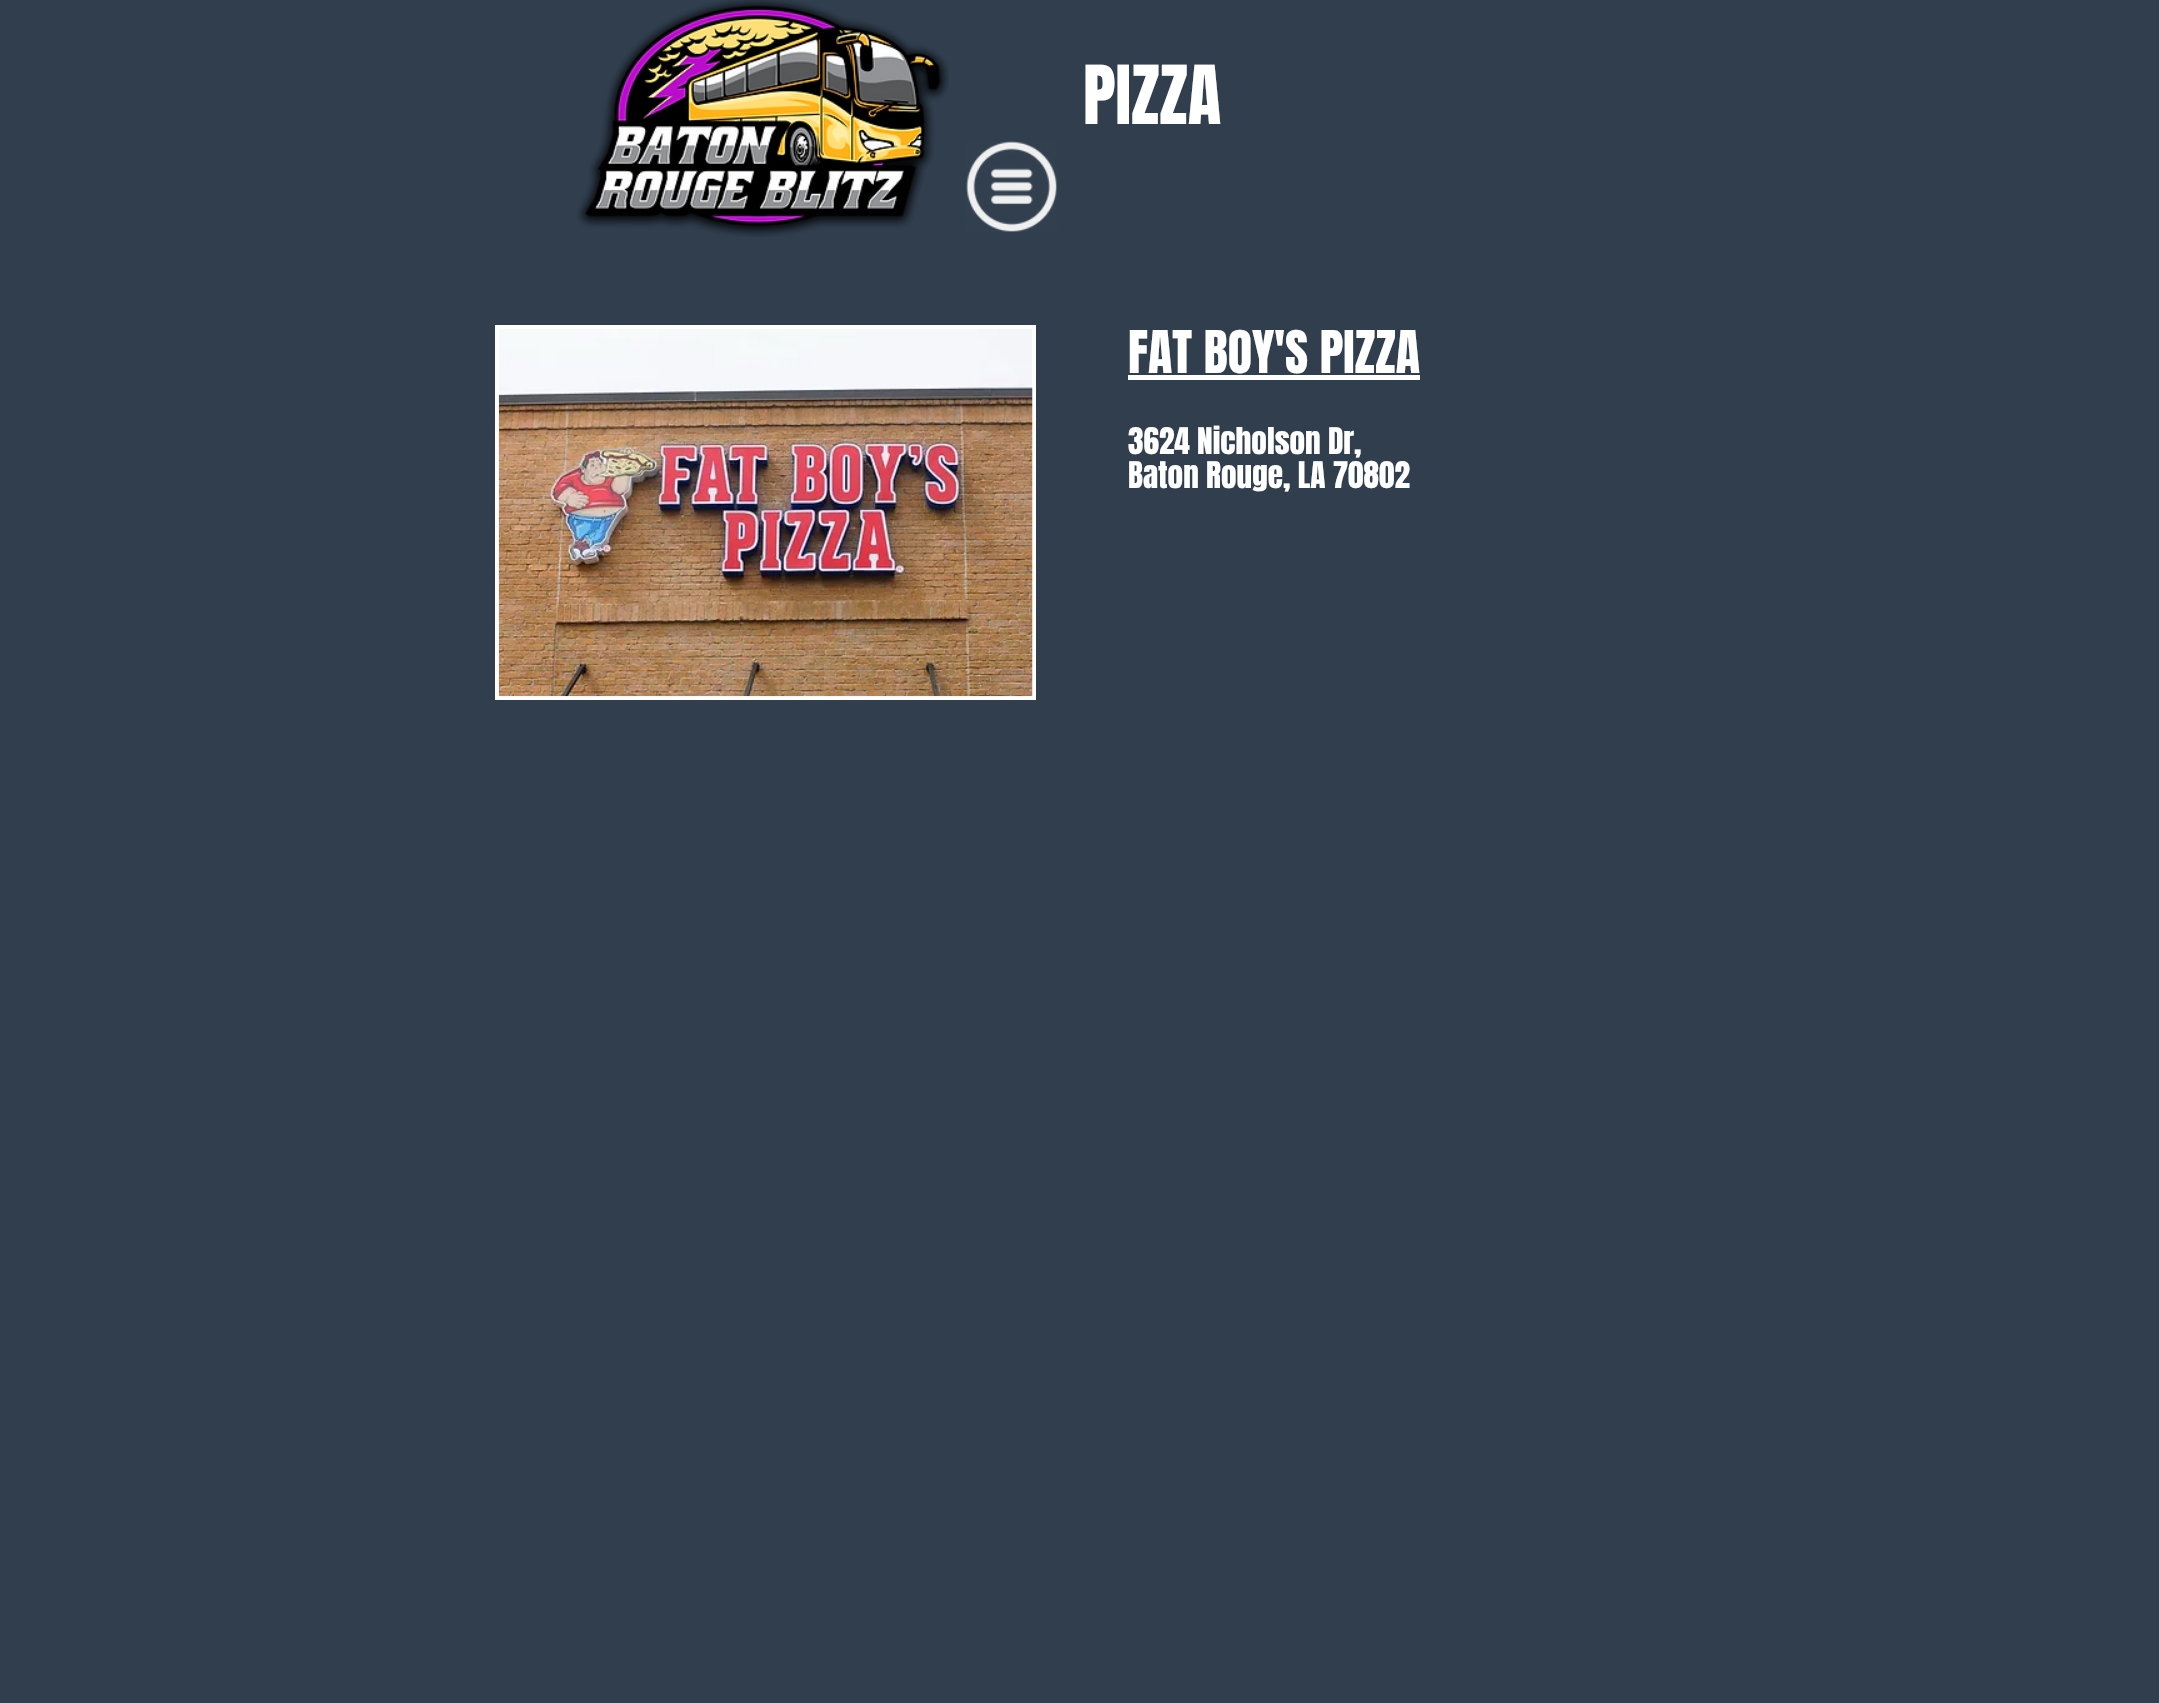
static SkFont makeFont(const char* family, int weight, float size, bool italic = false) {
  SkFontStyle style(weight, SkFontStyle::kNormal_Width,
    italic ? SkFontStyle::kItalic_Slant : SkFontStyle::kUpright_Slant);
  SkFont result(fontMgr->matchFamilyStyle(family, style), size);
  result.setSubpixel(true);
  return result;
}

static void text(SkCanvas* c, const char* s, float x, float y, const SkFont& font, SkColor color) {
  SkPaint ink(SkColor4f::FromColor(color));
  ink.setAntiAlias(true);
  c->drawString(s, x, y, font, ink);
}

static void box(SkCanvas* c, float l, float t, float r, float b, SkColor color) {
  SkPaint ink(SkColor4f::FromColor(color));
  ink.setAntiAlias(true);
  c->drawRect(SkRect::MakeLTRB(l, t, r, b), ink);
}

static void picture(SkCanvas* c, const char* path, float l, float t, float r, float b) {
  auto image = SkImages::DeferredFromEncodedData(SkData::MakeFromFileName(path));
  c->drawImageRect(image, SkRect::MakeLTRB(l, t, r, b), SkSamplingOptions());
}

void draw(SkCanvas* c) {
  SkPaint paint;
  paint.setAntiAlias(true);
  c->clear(0xff303e4e);
  picture(c, "img_01.png", 577, 0, 949, 237);
  SkFont face1 = makeFont("Anton", 400, 69);
  text(c, "PIZZA", 1083, 124, face1, 0xffffffff);
  picture(c, "img_02.png", 966, 141, 1057, 232);
  box(c, 495, 325, 1036, 700, 0xffffffff);
  picture(c, "img_03.png", 498, 329, 1033, 697);
  SkFont face2 = makeFont("Anton", 400, 50);
  text(c, "FAT BOY'S PIZZA", 1128, 373, face2, 0xffffffff);
  box(c, 1128, 375, 1420, 380, 0xffffffff);
  SkFont face3 = makeFont("Anton", 400, 31.25f);
  text(c, "3624 Nicholson Dr,", 1128, 454, face3, 0xffffffff);
  text(c, "Baton Rouge, LA 70802", 1128, 488, face3, 0xffffffff);
}
